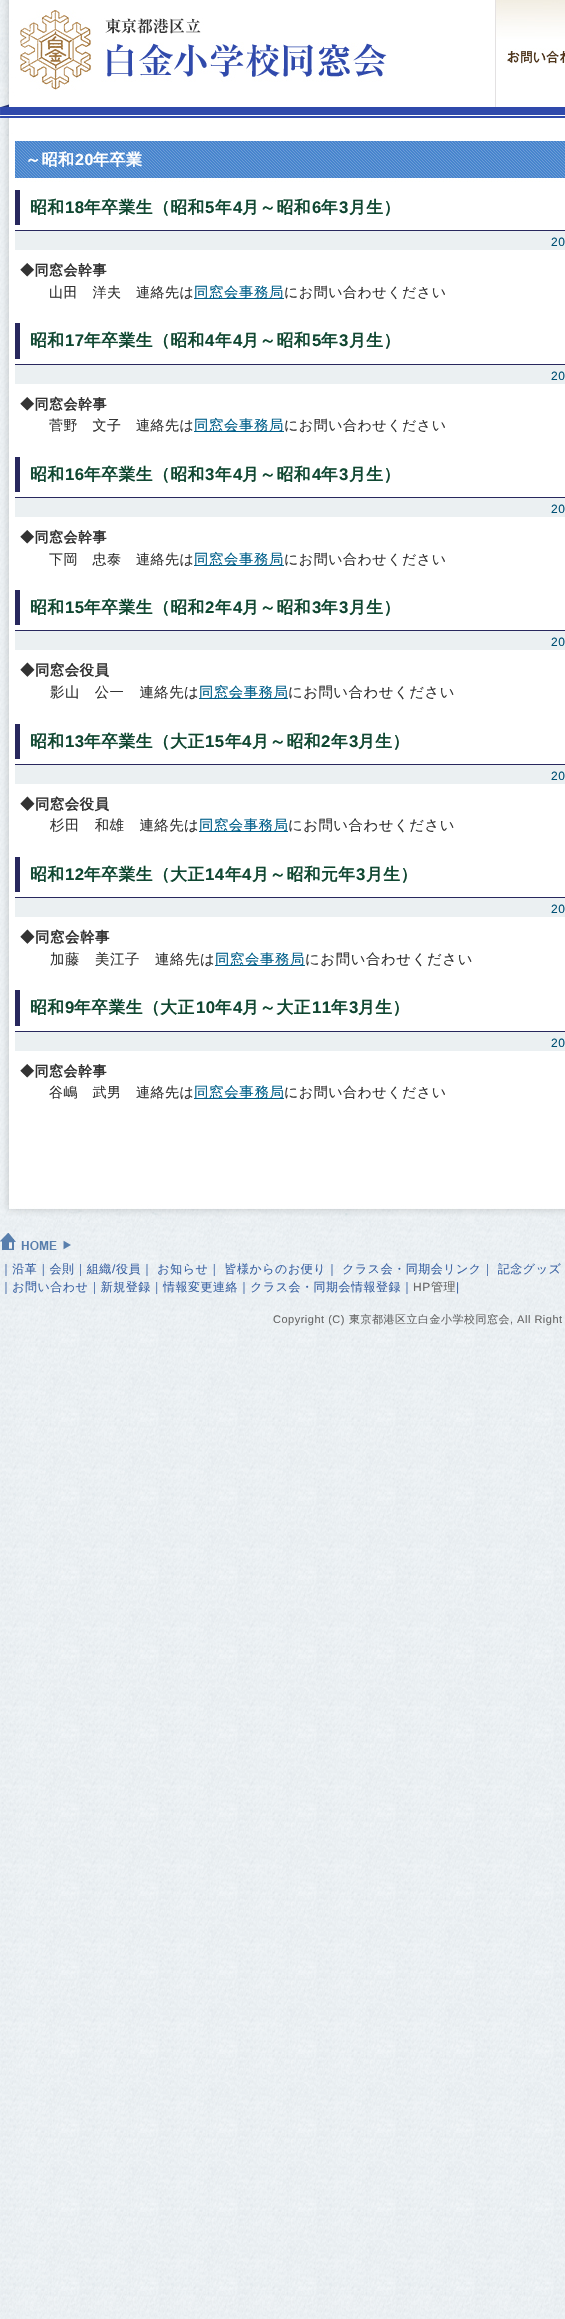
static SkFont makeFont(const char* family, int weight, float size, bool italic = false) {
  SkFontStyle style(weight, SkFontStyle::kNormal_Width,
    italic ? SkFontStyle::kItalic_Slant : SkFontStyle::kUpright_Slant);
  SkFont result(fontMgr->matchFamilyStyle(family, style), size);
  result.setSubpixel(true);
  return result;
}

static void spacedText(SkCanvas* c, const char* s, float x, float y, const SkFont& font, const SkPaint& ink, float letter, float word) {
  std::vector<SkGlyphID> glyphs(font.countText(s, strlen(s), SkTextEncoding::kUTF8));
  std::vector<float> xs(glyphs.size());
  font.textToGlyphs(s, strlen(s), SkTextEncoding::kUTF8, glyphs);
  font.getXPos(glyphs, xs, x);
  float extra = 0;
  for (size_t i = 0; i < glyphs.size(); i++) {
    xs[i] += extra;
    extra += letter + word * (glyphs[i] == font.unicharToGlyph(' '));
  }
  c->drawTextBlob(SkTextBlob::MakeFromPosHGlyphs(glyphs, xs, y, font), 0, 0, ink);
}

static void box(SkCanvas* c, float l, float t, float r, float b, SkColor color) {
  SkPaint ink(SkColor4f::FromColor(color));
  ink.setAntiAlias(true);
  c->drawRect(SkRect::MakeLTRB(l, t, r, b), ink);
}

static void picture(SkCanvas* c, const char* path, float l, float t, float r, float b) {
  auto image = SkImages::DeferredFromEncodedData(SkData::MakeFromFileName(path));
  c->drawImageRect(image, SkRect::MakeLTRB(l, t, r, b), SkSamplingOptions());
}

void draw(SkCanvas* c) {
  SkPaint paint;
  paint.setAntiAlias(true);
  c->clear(0xffffffff);
  picture(c, "img_01.png", 0, 1223, 565, 2319);
  picture(c, "img_02.png", 0, 0, 565, 136);
  picture(c, "img_03.png", 20, 10, 387, 90);
  picture(c, "img_04.png", 495, 0, 565, 107);
  picture(c, "img_05.png", 0, 136, 565, 1205);
  picture(c, "img_06.png", 15, 141, 565, 182);
  SkFont face1 = makeFont("WenQuanYi Zen Hei", 700, 16);
  paint.setColor(0xffffffff);
  spacedText(c, "～昭和", 25, 165, face1, paint, 0.5f, 0);
  SkFont face2 = makeFont("Liberation Sans", 700, 16);
  spacedText(c, "20", 75, 165, face2, paint, 0.5f, 0);
  spacedText(c, "年卒業", 93, 165, face1, paint, 0.5f, 0);
  box(c, 15, 230, 565, 231, 0xff28285e);
  box(c, 15, 190, 20, 225, 0xff28285e);
  SkFont face3 = makeFont("WenQuanYi Zen Hei", 700, 16.75f);
  paint.setColor(0xff104731);
  spacedText(c, "昭和", 30, 213, face3, paint, 0.5f, 0);
  SkFont face4 = makeFont("Liberation Sans", 700, 16.75f);
  spacedText(c, "18", 65, 213, face4, paint, 0.5f, 0);
  spacedText(c, "年卒業生（昭和", 84, 213, face3, paint, 0.5f, 0);
  spacedText(c, "5", 205, 213, face4, paint, 0.5f, 0);
  spacedText(c, "年", 215, 213, face3, paint, 0.5f, 0);
  spacedText(c, "4", 233, 213, face4, paint, 0.5f, 0);
  spacedText(c, "月～昭和", 242, 213, face3, paint, 0.5f, 0);
  spacedText(c, "6", 312, 213, face4, paint, 0.5f, 0);
  spacedText(c, "年", 321, 213, face3, paint, 0.5f, 0);
  spacedText(c, "3", 339, 213, face4, paint, 0.5f, 0);
  spacedText(c, "月生）", 349, 213, face3, paint, 0.5f, 0);
  box(c, 15, 231, 565, 250, 0xffebf0f2);
  SkFont face5 = makeFont("Liberation Sans", 400, 12);
  paint.setColor(0xff005074);
  spacedText(c, "20", 551, 246, face5, paint, 0.5f, 0);
  SkFont face6 = makeFont("WenQuanYi Zen Hei", 700, 14);
  paint.setColor(0xff333333);
  spacedText(c, "◆同窓会幹事", 20, 275, face6, paint, 0.5f, 0);
  SkFont face7 = makeFont("WenQuanYi Zen Hei", 500, 14);
  spacedText(c, "山田　洋夫　連絡先は", 49, 297, face7, paint, 0.5f, 0);
  box(c, 194, 298, 284, 299, 0xff005f8a);
  SkFont face8 = makeFont("WenQuanYi Zen Hei", 500, 14.4f);
  paint.setColor(0xff005f8a);
  spacedText(c, "同窓会事務局", 194, 297, face8, paint, 0.6f, 0);
  paint.setColor(0xff333333);
  spacedText(c, "にお問い合わせください", 284, 297, face7, paint, 0.5f, 0);
  box(c, 15, 364, 565, 365, 0xff28285e);
  box(c, 15, 323, 20, 359, 0xff28285e);
  paint.setColor(0xff104731);
  spacedText(c, "昭和", 30, 346, face3, paint, 0.5f, 0);
  spacedText(c, "17", 65, 346, face4, paint, 0.5f, 0);
  spacedText(c, "年卒業生（昭和", 84, 346, face3, paint, 0.5f, 0);
  spacedText(c, "4", 205, 346, face4, paint, 0.5f, 0);
  spacedText(c, "年", 215, 346, face3, paint, 0.5f, 0);
  spacedText(c, "4", 233, 346, face4, paint, 0.5f, 0);
  spacedText(c, "月～昭和", 242, 346, face3, paint, 0.5f, 0);
  spacedText(c, "5", 312, 346, face4, paint, 0.5f, 0);
  spacedText(c, "年", 321, 346, face3, paint, 0.5f, 0);
  spacedText(c, "3", 339, 346, face4, paint, 0.5f, 0);
  spacedText(c, "月生）", 349, 346, face3, paint, 0.5f, 0);
  box(c, 15, 365, 565, 384, 0xffebf0f2);
  paint.setColor(0xff005074);
  spacedText(c, "20", 551, 380, face5, paint, 0.5f, 0);
  paint.setColor(0xff333333);
  spacedText(c, "◆同窓会幹事", 20, 409, face6, paint, 0.5f, 0);
  spacedText(c, "菅野　文子　連絡先は", 49, 430, face7, paint, 0.5f, 0);
  box(c, 194, 431, 284, 432, 0xff005f8a);
  paint.setColor(0xff005f8a);
  spacedText(c, "同窓会事務局", 194, 430, face8, paint, 0.6f, 0);
  paint.setColor(0xff333333);
  spacedText(c, "にお問い合わせください", 284, 430, face7, paint, 0.5f, 0);
  box(c, 15, 497, 565, 498, 0xff28285e);
  box(c, 15, 457, 20, 492, 0xff28285e);
  paint.setColor(0xff104731);
  spacedText(c, "昭和", 30, 480, face3, paint, 0.5f, 0);
  spacedText(c, "16", 65, 480, face4, paint, 0.5f, 0);
  spacedText(c, "年卒業生（昭和", 84, 480, face3, paint, 0.5f, 0);
  spacedText(c, "3", 205, 480, face4, paint, 0.5f, 0);
  spacedText(c, "年", 215, 480, face3, paint, 0.5f, 0);
  spacedText(c, "4", 233, 480, face4, paint, 0.5f, 0);
  spacedText(c, "月～昭和", 242, 480, face3, paint, 0.5f, 0);
  spacedText(c, "4", 312, 480, face4, paint, 0.5f, 0);
  spacedText(c, "年", 321, 480, face3, paint, 0.5f, 0);
  spacedText(c, "3", 339, 480, face4, paint, 0.5f, 0);
  spacedText(c, "月生）", 349, 480, face3, paint, 0.5f, 0);
  box(c, 15, 498, 565, 517, 0xffebf0f2);
  paint.setColor(0xff005074);
  spacedText(c, "20", 551, 513, face5, paint, 0.5f, 0);
  paint.setColor(0xff333333);
  spacedText(c, "◆同窓会幹事", 20, 542, face6, paint, 0.5f, 0);
  spacedText(c, "下岡　忠泰　連絡先は", 49, 564, face7, paint, 0.5f, 0);
  box(c, 194, 565, 284, 566, 0xff005f8a);
  paint.setColor(0xff005f8a);
  spacedText(c, "同窓会事務局", 194, 564, face8, paint, 0.6f, 0);
  paint.setColor(0xff333333);
  spacedText(c, "にお問い合わせください", 284, 564, face7, paint, 0.5f, 0);
  box(c, 15, 630, 565, 631, 0xff28285e);
  box(c, 15, 590, 20, 625, 0xff28285e);
  paint.setColor(0xff104731);
  spacedText(c, "昭和", 30, 613, face3, paint, 0.5f, 0);
  spacedText(c, "15", 65, 613, face4, paint, 0.5f, 0);
  spacedText(c, "年卒業生（昭和", 84, 613, face3, paint, 0.5f, 0);
  spacedText(c, "2", 205, 613, face4, paint, 0.5f, 0);
  spacedText(c, "年", 215, 613, face3, paint, 0.5f, 0);
  spacedText(c, "4", 233, 613, face4, paint, 0.5f, 0);
  spacedText(c, "月～昭和", 242, 613, face3, paint, 0.5f, 0);
  spacedText(c, "3", 312, 613, face4, paint, 0.5f, 0);
  spacedText(c, "年", 321, 613, face3, paint, 0.5f, 0);
  spacedText(c, "3", 339, 613, face4, paint, 0.5f, 0);
  spacedText(c, "月生）", 349, 613, face3, paint, 0.5f, 0);
  box(c, 15, 631, 565, 650, 0xffebf0f2);
  paint.setColor(0xff005074);
  spacedText(c, "20", 551, 646, face5, paint, 0.5f, 0);
  SkFont face9 = makeFont("WenQuanYi Zen Hei", 700, 14.4f);
  paint.setColor(0xff333333);
  spacedText(c, "◆同窓会役員", 20, 675, face9, paint, 0.5f, 0);
  spacedText(c, "影山　公一　連絡先は", 50, 697, face8, paint, 0.5f, 0);
  box(c, 199, 698, 288, 699, 0xff005f8a);
  paint.setColor(0xff005f8a);
  spacedText(c, "同窓会事務局", 199, 697, face8, paint, 0.5f, 0);
  paint.setColor(0xff333333);
  spacedText(c, "にお問い合わせください", 288, 697, face8, paint, 0.5f, 0);
  box(c, 15, 764, 565, 765, 0xff28285e);
  box(c, 15, 724, 20, 759, 0xff28285e);
  paint.setColor(0xff104731);
  spacedText(c, "昭和", 30, 747, face3, paint, 0.5f, 0);
  spacedText(c, "13", 65, 747, face4, paint, 0.5f, 0);
  spacedText(c, "年卒業生（大正", 84, 747, face3, paint, 0.5f, 0);
  spacedText(c, "15", 205, 747, face4, paint, 0.5f, 0);
  spacedText(c, "年", 225, 747, face3, paint, 0.5f, 0);
  spacedText(c, "4", 242, 747, face4, paint, 0.5f, 0);
  spacedText(c, "月～昭和", 252, 747, face3, paint, 0.5f, 0);
  spacedText(c, "2", 321, 747, face4, paint, 0.5f, 0);
  spacedText(c, "年", 331, 747, face3, paint, 0.5f, 0);
  spacedText(c, "3", 349, 747, face4, paint, 0.5f, 0);
  spacedText(c, "月生）", 358, 747, face3, paint, 0.5f, 0);
  box(c, 15, 765, 565, 784, 0xffebf0f2);
  paint.setColor(0xff005074);
  spacedText(c, "20", 551, 780, face5, paint, 0.5f, 0);
  paint.setColor(0xff333333);
  spacedText(c, "◆同窓会役員", 20, 809, face9, paint, 0.5f, 0);
  spacedText(c, "杉田　和雄　連絡先は", 50, 830, face8, paint, 0.5f, 0);
  box(c, 199, 831, 288, 832, 0xff005f8a);
  paint.setColor(0xff005f8a);
  spacedText(c, "同窓会事務局", 199, 830, face8, paint, 0.5f, 0);
  paint.setColor(0xff333333);
  spacedText(c, "にお問い合わせください", 288, 830, face8, paint, 0.5f, 0);
  box(c, 15, 897, 565, 898, 0xff28285e);
  box(c, 15, 857, 20, 892, 0xff28285e);
  paint.setColor(0xff104731);
  spacedText(c, "昭和", 30, 880, face3, paint, 0.5f, 0);
  spacedText(c, "12", 65, 880, face4, paint, 0.5f, 0);
  spacedText(c, "年卒業生（大正", 84, 880, face3, paint, 0.5f, 0);
  spacedText(c, "14", 205, 880, face4, paint, 0.5f, 0);
  spacedText(c, "年", 225, 880, face3, paint, 0.5f, 0);
  spacedText(c, "4", 242, 880, face4, paint, 0.5f, 0);
  spacedText(c, "月～昭和元年", 252, 880, face3, paint, 0.5f, 0);
  spacedText(c, "3", 356, 880, face4, paint, 0.5f, 0);
  spacedText(c, "月生）", 366, 880, face3, paint, 0.5f, 0);
  box(c, 15, 898, 565, 917, 0xffebf0f2);
  paint.setColor(0xff005074);
  spacedText(c, "20", 551, 913, face5, paint, 0.5f, 0);
  paint.setColor(0xff333333);
  spacedText(c, "◆同窓会幹事", 20, 942, face9, paint, 0.6f, 0);
  spacedText(c, "加藤　美江子　連絡先は", 50, 964, face8, paint, 0.6f, 0);
  box(c, 215, 965, 305, 966, 0xff005f8a);
  paint.setColor(0xff005f8a);
  spacedText(c, "同窓会事務局", 215, 964, face8, paint, 0.6f, 0);
  paint.setColor(0xff333333);
  spacedText(c, "にお問い合わせください", 305, 964, face8, paint, 0.6f, 0);
  box(c, 15, 1031, 565, 1032, 0xff28285e);
  box(c, 15, 990, 20, 1026, 0xff28285e);
  paint.setColor(0xff104731);
  spacedText(c, "昭和", 30, 1013, face3, paint, 0.5f, 0);
  spacedText(c, "9", 65, 1013, face4, paint, 0.5f, 0);
  spacedText(c, "年卒業生（大正", 74, 1013, face3, paint, 0.5f, 0);
  spacedText(c, "10", 196, 1013, face4, paint, 0.5f, 0);
  spacedText(c, "年", 215, 1013, face3, paint, 0.5f, 0);
  spacedText(c, "4", 233, 1013, face4, paint, 0.5f, 0);
  spacedText(c, "月～大正", 242, 1013, face3, paint, 0.5f, 0);
  spacedText(c, "11", 312, 1013, face4, paint, 0.5f, 0);
  spacedText(c, "年", 331, 1013, face3, paint, 0.5f, 0);
  spacedText(c, "3", 349, 1013, face4, paint, 0.5f, 0);
  spacedText(c, "月生）", 358, 1013, face3, paint, 0.5f, 0);
  box(c, 15, 1032, 565, 1051, 0xffebf0f2);
  paint.setColor(0xff005074);
  spacedText(c, "20", 551, 1047, face5, paint, 0.5f, 0);
  paint.setColor(0xff333333);
  spacedText(c, "◆同窓会幹事", 20, 1076, face6, paint, 0.5f, 0);
  spacedText(c, "谷嶋　武男　連絡先は", 49, 1097, face7, paint, 0.5f, 0);
  box(c, 194, 1098, 284, 1099, 0xff005f8a);
  SkFont face10 = makeFont("WenQuanYi Zen Hei", 500, 14.5f);
  paint.setColor(0xff005f8a);
  spacedText(c, "同窓会事務局", 194, 1097, face10, paint, 0.6f, 0);
  paint.setColor(0xff333333);
  spacedText(c, "にお問い合わせください", 284, 1097, face7, paint, 0.5f, 0);
  picture(c, "img_07.png", 0, 1205, 565, 1223);
  picture(c, "img_08.png", 0, 1233, 71, 1250);
  SkFont face11 = makeFont("WenQuanYi Zen Hei", 500, 12);
  paint.setColor(0xff3a62a3);
  spacedText(c, "｜沿革｜会則｜組織", 0, 1273, face11, paint, 0.5f, 0);
  spacedText(c, "/", 112, 1273, face5, paint, 0.5f, 0);
  spacedText(c, "役員｜ お知らせ｜ 皆様からのお便り｜ クラス会・同期会リンク｜ 記念グッズ", 116, 1273, face11, paint, 0.5f, 0);
  spacedText(c, "｜お問い合わせ｜新規登録｜情報変更連絡｜クラス会・同期会情報登録｜", 0, 1291, face11, paint, 0.5f, 0);
  paint.setColor(0xff666666);
  spacedText(c, "HP", 413, 1291, face5, paint, 0.5f, 0);
  spacedText(c, "管理", 431, 1291, face11, paint, 0.5f, 0);
  paint.setColor(0xff3a62a3);
  spacedText(c, "|", 456, 1291, face5, paint, 0.5f, 0);
  SkFont face12 = makeFont("Liberation Sans", 400, 11);
  paint.setColor(0xff666666);
  spacedText(c, "Copyright (C)", 273, 1323, face12, paint, 0.5f, 0);
  SkFont face13 = makeFont("WenQuanYi Zen Hei", 500, 11);
  spacedText(c, "東京都港区立白金小学校同窓会", 349, 1323, face13, paint, 0.5f, 0);
  spacedText(c, ", All Right", 510, 1323, face12, paint, 0.5f, 0);
}
